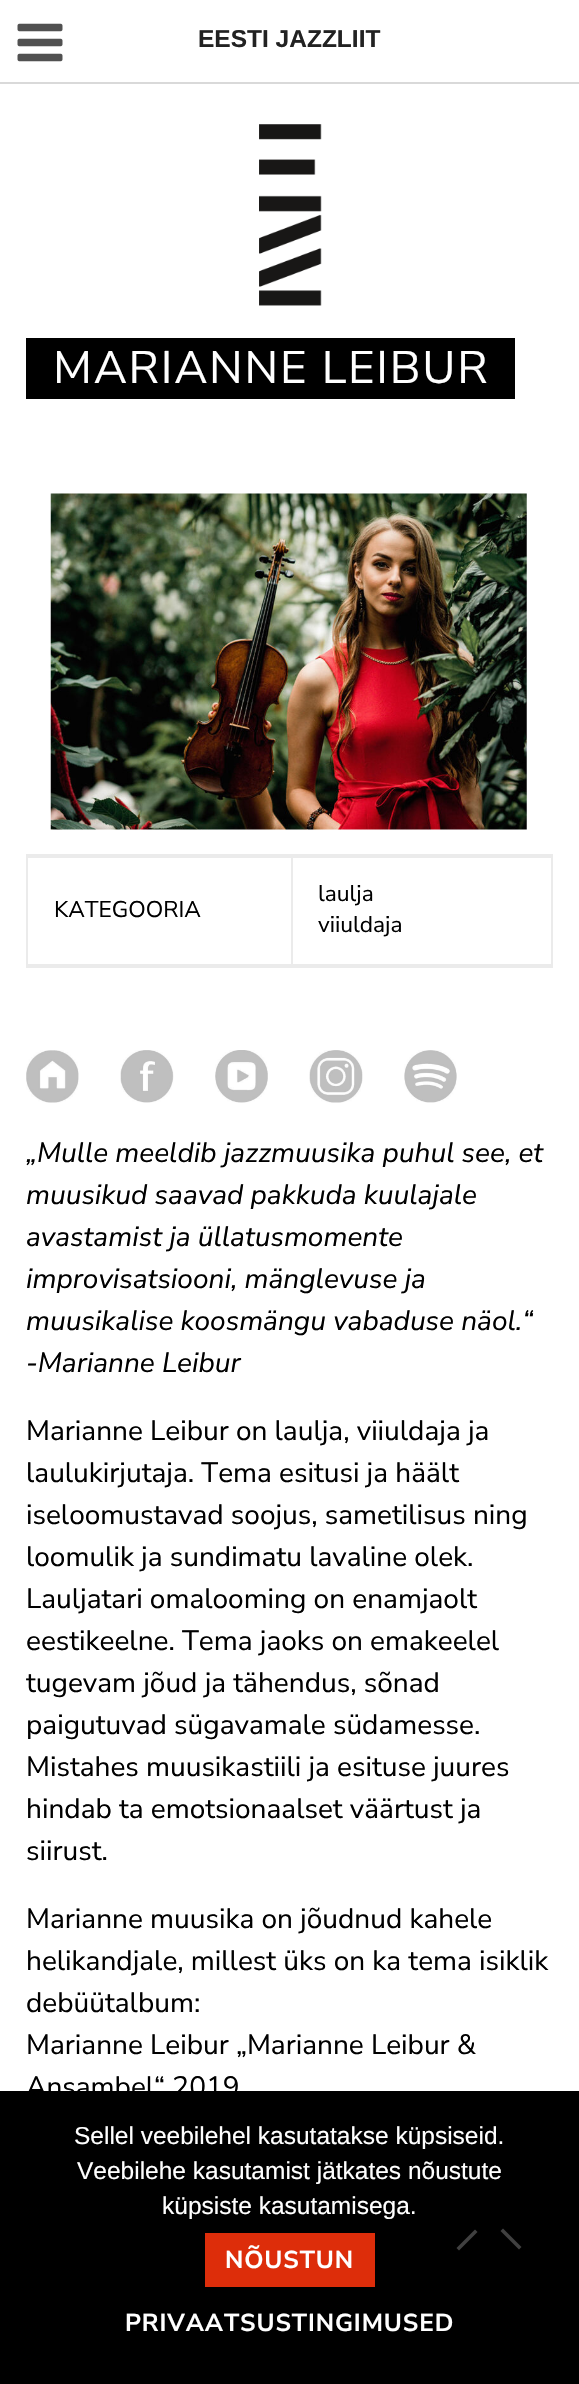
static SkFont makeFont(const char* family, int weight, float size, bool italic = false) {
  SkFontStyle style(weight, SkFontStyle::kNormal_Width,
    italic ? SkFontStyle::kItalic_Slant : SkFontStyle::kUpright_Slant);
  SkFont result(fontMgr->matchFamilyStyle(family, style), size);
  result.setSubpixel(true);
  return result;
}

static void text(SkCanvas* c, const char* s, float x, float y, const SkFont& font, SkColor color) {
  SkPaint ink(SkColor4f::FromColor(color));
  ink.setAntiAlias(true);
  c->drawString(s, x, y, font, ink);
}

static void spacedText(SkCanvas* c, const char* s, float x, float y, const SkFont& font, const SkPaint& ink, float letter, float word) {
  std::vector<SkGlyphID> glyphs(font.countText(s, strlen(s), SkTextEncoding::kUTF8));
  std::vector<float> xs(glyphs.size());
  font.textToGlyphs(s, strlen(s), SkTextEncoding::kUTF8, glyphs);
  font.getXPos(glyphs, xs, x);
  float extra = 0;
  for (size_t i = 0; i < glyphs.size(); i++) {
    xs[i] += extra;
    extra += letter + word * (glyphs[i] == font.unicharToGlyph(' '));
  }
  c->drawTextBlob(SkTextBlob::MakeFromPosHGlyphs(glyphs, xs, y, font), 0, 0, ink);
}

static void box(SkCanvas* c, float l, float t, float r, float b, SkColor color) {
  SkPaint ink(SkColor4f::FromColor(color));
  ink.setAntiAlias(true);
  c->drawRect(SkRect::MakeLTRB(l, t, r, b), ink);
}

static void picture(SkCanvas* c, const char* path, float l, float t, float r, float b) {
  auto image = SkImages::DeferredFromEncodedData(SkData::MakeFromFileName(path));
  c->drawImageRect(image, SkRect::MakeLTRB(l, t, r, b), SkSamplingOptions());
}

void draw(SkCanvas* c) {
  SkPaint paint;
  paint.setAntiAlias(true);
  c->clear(0xffffffff);
  box(c, 0, 82, 579, 84, 0xffd9d9d9);
  picture(c, "img_01.png", 17, 23, 63, 62);
  SkFont face1 = makeFont("Liberation Sans", 700, 24.5f);
  text(c, "EESTI JAZZLIIT", 198, 47, face1, 0xff222222);
  picture(c, "img_02.png", 259, 124, 322, 306);
  box(c, 26, 338, 515, 399, 0xff000000);
  SkFont face2 = makeFont("Nunito Sans", 400, 45.5f);
  paint.setColor(0xffffffff);
  spacedText(c, "MARIANNE LEIBUR", 53, 383, face2, paint, 1.75f, 0);
  picture(c, "img_03.png", 50, 493, 527, 830);
  box(c, 26, 854, 553, 856, 0xffebebeb);
  box(c, 26, 966, 553, 968, 0xffebebeb);
  paint.setStyle(SkPaint::kStroke_Style);
  paint.setStrokeWidth(2);
  paint.setColor(0xffebebeb);
  c->drawRect(SkRect::MakeLTRB(27, 857, 552, 965), paint);
  SkFont face3 = makeFont("Nunito Sans", 400, 22.75f);
  text(c, "KATEGOORIA", 54, 917, face3, 0xff000000);
  box(c, 291, 856, 293, 966, 0xffebebeb);
  text(c, "laulja", 318, 901, face3, 0xff000000);
  text(c, "viiuldaja", 318, 932, face3, 0xff000000);
  picture(c, "img_04.png", 26, 1050, 79, 1103);
  picture(c, "img_05.png", 120, 1050, 174, 1103);
  picture(c, "img_06.png", 215, 1050, 268, 1103);
  picture(c, "img_07.png", 309, 1050, 363, 1103);
  picture(c, "img_08.png", 404, 1050, 457, 1103);
  SkFont face4 = makeFont("Nunito Sans", 400, 28, true);
  text(c, "„Mulle meeldib jazzmuusika puhul see, et", 26, 1162, face4, 0xff000000);
  text(c, "muusikud saavad pakkuda kuulajale", 26, 1204, face4, 0xff000000);
  text(c, "avastamist ja üllatusmomente", 26, 1246, face4, 0xff000000);
  text(c, "improvisatsiooni, mänglevuse ja", 26, 1288, face4, 0xff000000);
  text(c, "muusikalise koosmängu vabaduse näol.“", 26, 1330, face4, 0xff000000);
  text(c, "-Marianne Leibur", 26, 1372, face4, 0xff000000);
  SkFont face5 = makeFont("Nunito Sans", 400, 28);
  text(c, "Marianne Leibur on laulja, viiuldaja ja", 26, 1440, face5, 0xff000000);
  text(c, "laulukirjutaja. Tema esitusi ja häält", 26, 1482, face5, 0xff000000);
  text(c, "iseloomustavad soojus, sametilisus ning", 26, 1524, face5, 0xff000000);
  text(c, "loomulik ja sundimatu lavaline olek.", 26, 1566, face5, 0xff000000);
  text(c, "Lauljatari omalooming on enamjaolt", 26, 1608, face5, 0xff000000);
  text(c, "eestikeelne. Tema jaoks on emakeelel", 26, 1650, face5, 0xff000000);
  text(c, "tugevam jõud ja tähendus, sõnad", 26, 1692, face5, 0xff000000);
  text(c, "paigutuvad sügavamale südamesse.", 26, 1734, face5, 0xff000000);
  text(c, "Mistahes muusikastiili ja esituse juures", 26, 1776, face5, 0xff000000);
  text(c, "hindab ta emotsionaalset väärtust ja", 26, 1818, face5, 0xff000000);
  text(c, "siirust.", 26, 1860, face5, 0xff000000);
  text(c, "Marianne muusika on jõudnud kahele", 26, 1928, face5, 0xff000000);
  text(c, "helikandjale, millest üks on ka tema isiklik", 26, 1970, face5, 0xff000000);
  text(c, "debüütalbum:", 26, 2012, face5, 0xff000000);
  text(c, "Marianne Leibur „Marianne Leibur &", 26, 2054, face5, 0xff000000);
  text(c, "Ansambel“ 2019", 26, 2096, face5, 0xff000000);
  box(c, 0, 2091, 579, 2384, 0xff000000);
  SkFont face6 = makeFont("Liberation Sans", 400, 24.5f);
  text(c, "Sellel veebilehel kasutatakse küpsiseid.", 74, 2144, face6, 0xffffffff);
  text(c, "Veebilehe kasutamist jätkates nõustute", 77, 2179, face6, 0xffffffff);
  text(c, "küpsiste kasutamisega.", 162, 2214, face6, 0xffffffff);
  paint.setStyle(SkPaint::kFill_Style);
  paint.setColor(0xff404040);
  c->drawPath(SkPathBuilder().moveTo(475, 2229.5f).lineTo(477.5f, 2232).lineTo(459, 2250.5f).lineTo(456.5f, 2248).close().detach(), paint);
  c->drawPath(SkPathBuilder().moveTo(500.5f, 2231).lineTo(503, 2228.5f).lineTo(521.5f, 2247).lineTo(519, 2249.5f).close().detach(), paint);
  box(c, 205, 2233, 375, 2287, 0xffdd2d0a);
  SkFont face7 = makeFont("Nunito Sans", 700, 24.5f);
  paint.setColor(0xffffffff);
  spacedText(c, "NÕUSTUN", 225, 2268, face7, paint, 0.9f, 0);
  spacedText(c, "PRIVAATSUSTINGIMUSED", 125, 2331, face7, paint, 0.9f, 0);
}
